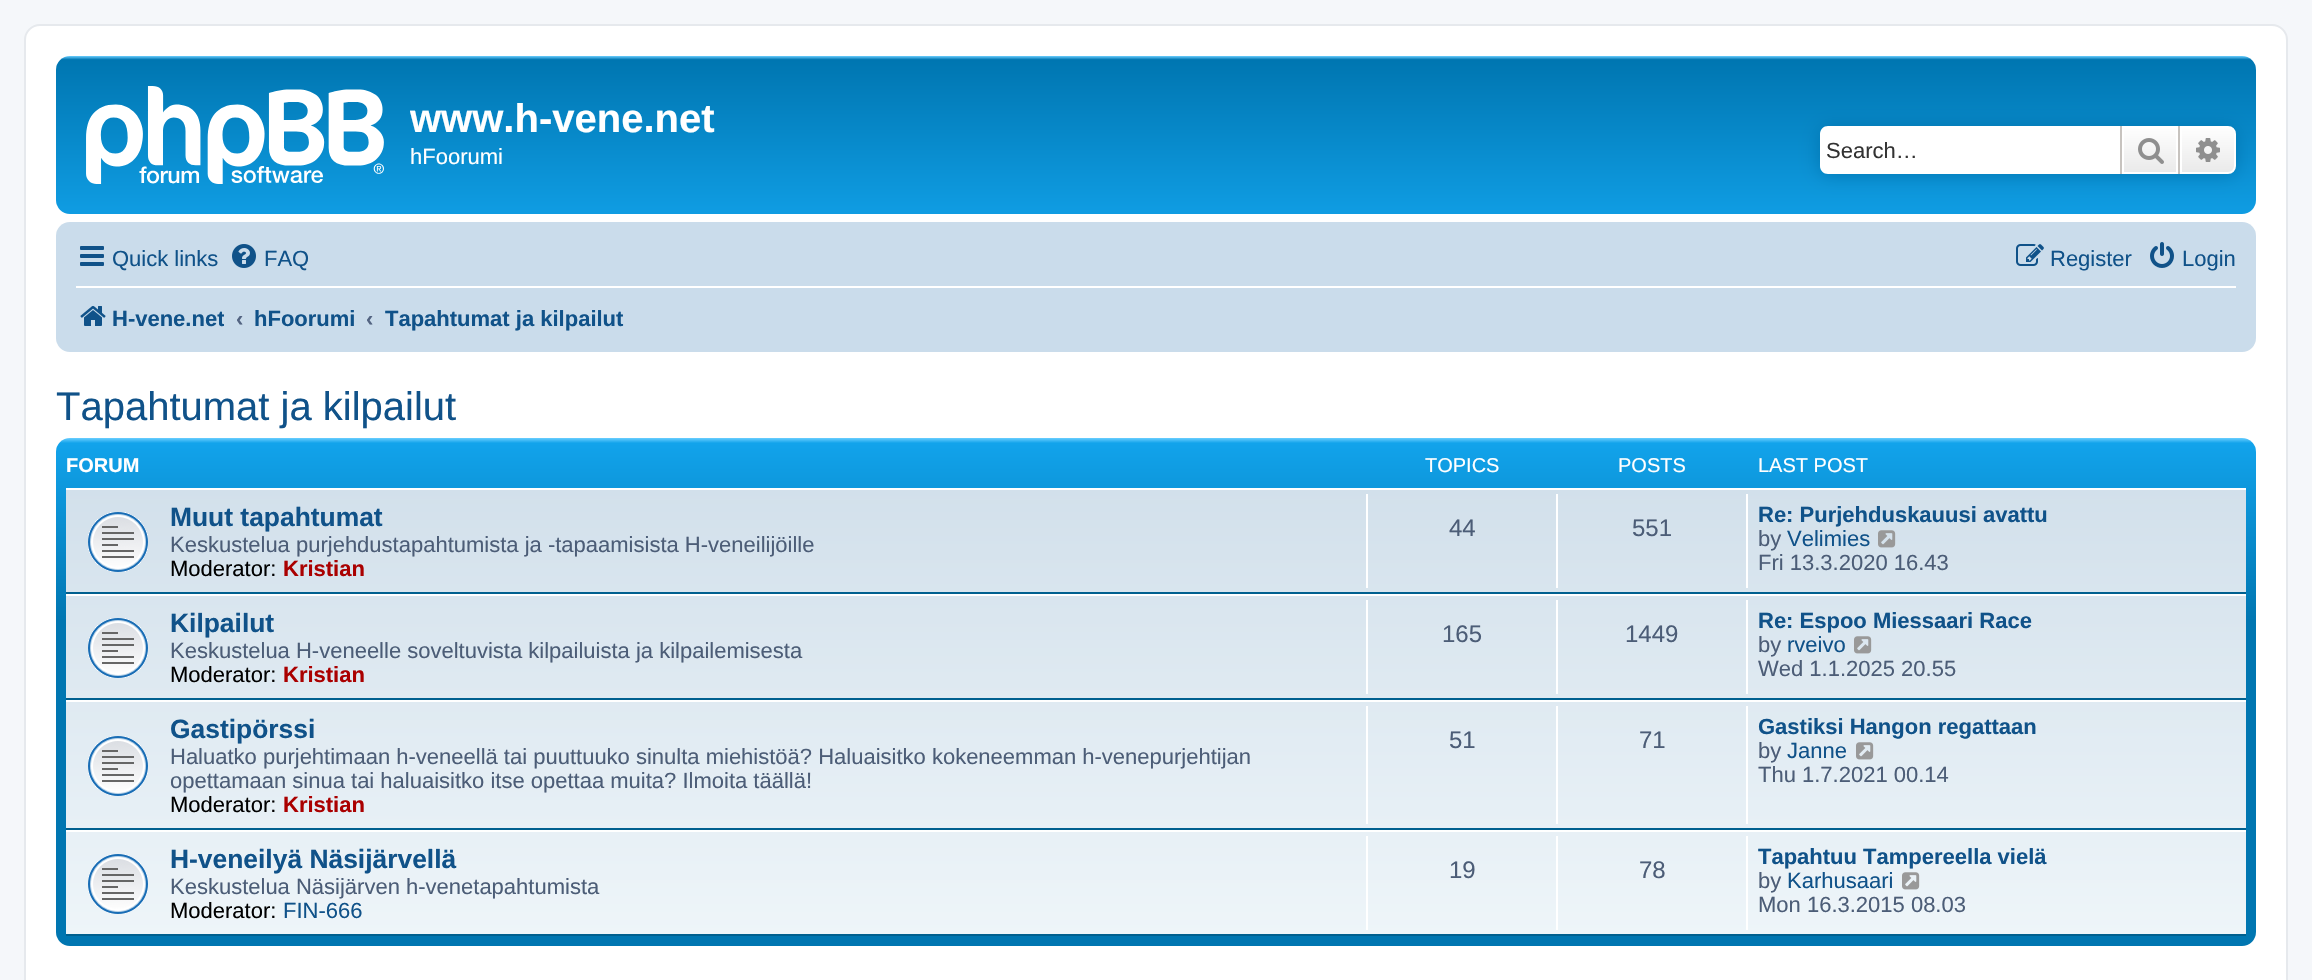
static SkFont makeFont(const char* family, int weight, float size, bool italic = false) {
  SkFontStyle style(weight, SkFontStyle::kNormal_Width,
    italic ? SkFontStyle::kItalic_Slant : SkFontStyle::kUpright_Slant);
  SkFont result(fontMgr->matchFamilyStyle(family, style), size);
  result.setSubpixel(true);
  return result;
}

static void text(SkCanvas* c, const char* s, float x, float y, const SkFont& font, SkColor color) {
  SkPaint ink(SkColor4f::FromColor(color));
  ink.setAntiAlias(true);
  c->drawString(s, x, y, font, ink);
}

static void box(SkCanvas* c, float l, float t, float r, float b, SkColor color) {
  SkPaint ink(SkColor4f::FromColor(color));
  ink.setAntiAlias(true);
  c->drawRect(SkRect::MakeLTRB(l, t, r, b), ink);
}

static void roundBox(SkCanvas* c, float l, float t, float r, float b, float radius, SkColor color) {
  SkPaint ink(SkColor4f::FromColor(color));
  ink.setAntiAlias(true);
  c->drawRoundRect(SkRect::MakeLTRB(l, t, r, b), radius, radius, ink);
}

static void picture(SkCanvas* c, const char* path, float l, float t, float r, float b) {
  auto image = SkImages::DeferredFromEncodedData(SkData::MakeFromFileName(path));
  c->drawImageRect(image, SkRect::MakeLTRB(l, t, r, b), SkSamplingOptions());
}

void draw(SkCanvas* c) {
  SkPaint paint;
  paint.setAntiAlias(true);
  c->clear(0xfff5f7fa);
  paint.setColor(0xffffffff);
  c->drawRoundRect(SkRect::MakeLTRB(25, 25, 2287, 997), 15, 15, paint);
  paint.setStyle(SkPaint::kStroke_Style);
  paint.setStrokeWidth(2);
  paint.setColor(0xffe6e9ed);
  c->drawRoundRect(SkRect::MakeLTRB(25, 25, 2287, 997), 15, 15, paint);
  paint.setStyle(SkPaint::kFill_Style);
  {
    const SkColor colors[] = {0xff6aceff, 0xff0076b1, 0xff12a3eb};
    const float stops[] = {0, 0.02f, 1};
    const SkPoint ends[] = {{1156, 56}, {1156, 240}};
    paint.setShader(SkGradientShader::MakeLinear(ends, colors, stops, 3, SkTileMode::kClamp));
    paint.setAlpha(255);
  }
  c->drawRoundRect(SkRect::MakeLTRB(56, 56, 2256, 214), 14, 14, paint);
  picture(c, "img_01.png", 86, 86, 384, 184);
  SkFont face1 = makeFont("Liberation Sans", 700, 40);
  text(c, "www.h-vene.net", 410, 132, face1, 0xffffffff);
  SkFont face2 = makeFont("Liberation Sans", 400, 22);
  text(c, "hFoorumi", 410, 164, face2, 0xffffffff);
  paint.setShader(nullptr);
  paint.setColor(0xff0075b0);
  paint.setMaskFilter(SkMaskFilter::MakeBlur(kNormal_SkBlurStyle, 10));
  c->drawRoundRect(SkRect::MakeLTRB(1820, 126, 2236, 174), 8, 8, paint);
  paint.setMaskFilter(nullptr);
  paint.setColor(0xffffffff);
  c->drawPath(SkPathBuilder().moveTo(1828, 126).lineTo(2120, 126).lineTo(2120, 174).lineTo(1828, 174).cubicTo(1823.5f, 174, 1820, 170.5f, 1820, 166).lineTo(1820, 134).cubicTo(1820, 129.5f, 1823.5f, 126, 1828, 126).close().detach(), paint);
  text(c, "Search…", 1826, 158, face2, 0xff333333);
  {
    const SkColor colors[] = {0xffffffff, 0xffe9e9e9};
    const float stops[] = {0, 1};
    const SkPoint ends[] = {{2150, 126}, {2150, 174}};
    paint.setShader(SkGradientShader::MakeLinear(ends, colors, stops, 2, SkTileMode::kClamp));
    paint.setAlpha(255);
  }
  c->drawRect(SkRect::MakeLTRB(2124, 128, 2176, 172), paint);
  paint.setStyle(SkPaint::kStroke_Style);
  paint.setShader(nullptr);
  paint.setColor(0xffffffff);
  c->drawRect(SkRect::MakeLTRB(2123, 127, 2177, 173), paint);
  box(c, 2178, 126, 2180, 174, 0xffc7c3bf);
  box(c, 2120, 126, 2122, 174, 0xffc7c3bf);
  picture(c, "img_02.png", 2138, 138, 2164, 164);
  paint.setStyle(SkPaint::kFill_Style);
  {
    const SkColor colors[] = {0xffffffff, 0xffe9e9e9};
    const float stops[] = {0, 1};
    const SkPoint ends[] = {{2208, 126}, {2208, 174}};
    paint.setShader(SkGradientShader::MakeLinear(ends, colors, stops, 2, SkTileMode::kClamp));
    paint.setAlpha(255);
  }
  c->drawPath(SkPathBuilder().moveTo(2181, 127).lineTo(2228, 127).cubicTo(2232, 127, 2235, 130, 2235, 134).lineTo(2235, 166).cubicTo(2235, 170, 2232, 173, 2228, 173).lineTo(2181, 173).close().detach(), paint);
  paint.setStyle(SkPaint::kStroke_Style);
  paint.setShader(nullptr);
  paint.setColor(0xffffffff);
  c->drawPath(SkPathBuilder().moveTo(2181, 127).lineTo(2228, 127).cubicTo(2232, 127, 2235, 130, 2235, 134).lineTo(2235, 166).cubicTo(2235, 170, 2232, 173, 2228, 173).lineTo(2181, 173).close().detach(), paint);
  picture(c, "img_03.png", 2196, 138, 2220, 162);
  roundBox(c, 56, 222, 2256, 352, 14, 0xffcadceb);
  picture(c, "img_04.png", 80, 246, 104, 266);
  text(c, "Quick links", 112, 266, face2, 0xff105289);
  picture(c, "img_05.png", 232, 244, 256, 268);
  text(c, "FAQ", 264, 266, face2, 0xff105289);
  picture(c, "img_06.png", 2016, 244, 2044, 266);
  text(c, "Register", 2050, 266, face2, 0xff105289);
  picture(c, "img_07.png", 2150, 242, 2174, 268);
  text(c, "Login", 2182, 266, face2, 0xff105289);
  box(c, 76, 286, 2236, 288, 0xffffffff);
  picture(c, "img_08.png", 80, 306, 106, 326);
  c->save();
  c->clipRect(SkRect::MakeLTRB(76, 294, 224, 342));
  SkFont face3 = makeFont("Liberation Sans", 700, 22);
  text(c, "H-vene.net", 112, 326, face3, 0xff105289);
  c->restore();
  text(c, "‹", 236, 326, face3, 0xff536482);
  text(c, "hFoorumi", 254, 326, face3, 0xff105289);
  text(c, "‹", 366, 326, face3, 0xff536482);
  text(c, "Tapahtumat ja kilpailut", 385, 326, face3, 0xff105289);
  SkFont face4 = makeFont("Liberation Sans", 400, 40);
  text(c, "Tapahtumat ja kilpailut", 56, 420, face4, 0xff105289);
  paint.setStyle(SkPaint::kFill_Style);
  {
    const SkColor colors[] = {0xff6aceff, 0xff12a3eb, 0xff0076b1, 0xff0076b1};
    const float stops[] = {0, 0.01f, 0.36f, 1};
    const SkPoint ends[] = {{1156, 438}, {1156, 946}};
    paint.setShader(SkGradientShader::MakeLinear(ends, colors, stops, 4, SkTileMode::kClamp));
    paint.setAlpha(255);
  }
  c->drawRoundRect(SkRect::MakeLTRB(56, 438, 2256, 946), 14, 14, paint);
  SkFont face5 = makeFont("Liberation Sans", 700, 20);
  text(c, "FORUM", 66, 472, face5, 0xffffffff);
  SkFont face6 = makeFont("Liberation Sans", 400, 20);
  text(c, "TOPICS", 1425, 472, face6, 0xffffffff);
  text(c, "POSTS", 1618, 472, face6, 0xffffffff);
  text(c, "LAST POST", 1758, 472, face6, 0xffffffff);
  {
    const SkColor colors[] = {0xffd2e0eb, 0xffeef5f9};
    const float stops[] = {0, 1};
    const SkPoint ends[] = {{1156, 488}, {1156, 936}};
    paint.setShader(SkGradientShader::MakeLinear(ends, colors, stops, 2, SkTileMode::kClamp));
    paint.setAlpha(255);
  }
  c->drawRect(SkRect::MakeLTRB(66, 490, 2246, 934), paint);
  box(c, 66, 488, 2246, 490, 0xffffffff);
  box(c, 66, 592, 2246, 594, 0xff00608f);
  picture(c, "img_09.png", 88, 512, 148, 572);
  SkFont face7 = makeFont("Liberation Sans", 700, 26.4f);
  text(c, "Muut tapahtumat", 170, 526, face7, 0xff105289);
  text(c, "Keskustelua purjehdustapahtumista ja -tapaamisista H-veneilijöille", 170, 552, face2, 0xff4c5d77);
  text(c, "Moderator:", 170, 576, face2, 0xff000000);
  text(c, "Kristian", 283, 576, face3, 0xffaa0000);
  box(c, 1366, 494, 1368, 588, 0xffffffff);
  SkFont face8 = makeFont("Liberation Sans", 400, 24);
  text(c, "44", 1449, 536, face8, 0xff4c5d77);
  box(c, 1556, 494, 1558, 588, 0xffffffff);
  text(c, "551", 1632, 536, face8, 0xff4c5d77);
  box(c, 1746, 494, 1748, 588, 0xffffffff);
  text(c, "Re: Purjehduskauusi avattu", 1758, 522, face3, 0xff105289);
  text(c, "by", 1758, 546, face2, 0xff4c5d77);
  text(c, "Velimies", 1787, 546, face2, 0xff105289);
  picture(c, "img_10.png", 1878, 530, 1896, 548);
  text(c, "Fri 13.3.2020 16.43", 1758, 570, face2, 0xff4c5d77);
  box(c, 66, 594, 2246, 596, 0xffffffff);
  box(c, 66, 698, 2246, 700, 0xff00608f);
  picture(c, "img_11.png", 88, 618, 148, 678);
  text(c, "Kilpailut", 170, 632, face7, 0xff105289);
  text(c, "Keskustelua H-veneelle soveltuvista kilpailuista ja kilpailemisesta", 170, 658, face2, 0xff4c5d77);
  text(c, "Moderator:", 170, 682, face2, 0xff000000);
  text(c, "Kristian", 283, 682, face3, 0xffaa0000);
  box(c, 1366, 600, 1368, 694, 0xffffffff);
  text(c, "165", 1442, 642, face8, 0xff4c5d77);
  box(c, 1556, 600, 1558, 694, 0xffffffff);
  text(c, "1449", 1625, 642, face8, 0xff4c5d77);
  box(c, 1746, 600, 1748, 694, 0xffffffff);
  text(c, "Re: Espoo Miessaari Race", 1758, 628, face3, 0xff105289);
  text(c, "by", 1758, 652, face2, 0xff4c5d77);
  text(c, "rveivo", 1787, 652, face2, 0xff105289);
  picture(c, "img_12.png", 1854, 636, 1872, 654);
  text(c, "Wed 1.1.2025 20.55", 1758, 676, face2, 0xff4c5d77);
  box(c, 66, 700, 2246, 702, 0xffffffff);
  box(c, 66, 828, 2246, 830, 0xff00608f);
  picture(c, "img_13.png", 88, 736, 148, 796);
  text(c, "Gastipörssi", 170, 738, face7, 0xff105289);
  text(c, "Haluatko purjehtimaan h-veneellä tai puuttuuko sinulta miehistöä? Haluaisitko kokeneemman h-venepurjehtijan", 170, 764, face2, 0xff4c5d77);
  text(c, "opettamaan sinua tai haluaisitko itse opettaa muita? Ilmoita täällä!", 170, 788, face2, 0xff4c5d77);
  text(c, "Moderator:", 170, 812, face2, 0xff000000);
  text(c, "Kristian", 283, 812, face3, 0xffaa0000);
  box(c, 1366, 706, 1368, 824, 0xffffffff);
  text(c, "51", 1449, 748, face8, 0xff4c5d77);
  box(c, 1556, 706, 1558, 824, 0xffffffff);
  text(c, "71", 1639, 748, face8, 0xff4c5d77);
  box(c, 1746, 706, 1748, 824, 0xffffffff);
  text(c, "Gastiksi Hangon regattaan", 1758, 734, face3, 0xff105289);
  text(c, "by", 1758, 758, face2, 0xff4c5d77);
  text(c, "Janne", 1787, 758, face2, 0xff105289);
  picture(c, "img_14.png", 1856, 742, 1874, 760);
  text(c, "Thu 1.7.2021 00.14", 1758, 782, face2, 0xff4c5d77);
  box(c, 66, 830, 2246, 832, 0xffffffff);
  box(c, 66, 934, 2246, 936, 0xff00608f);
  picture(c, "img_15.png", 88, 854, 148, 914);
  text(c, "H-veneilyä Näsijärvellä", 170, 868, face7, 0xff105289);
  text(c, "Keskustelua Näsijärven h-venetapahtumista", 170, 894, face2, 0xff4c5d77);
  text(c, "Moderator:", 170, 918, face2, 0xff000000);
  text(c, "FIN-666", 283, 918, face2, 0xff105289);
  box(c, 1366, 836, 1368, 930, 0xffffffff);
  text(c, "19", 1449, 878, face8, 0xff4c5d77);
  box(c, 1556, 836, 1558, 930, 0xffffffff);
  text(c, "78", 1639, 878, face8, 0xff4c5d77);
  box(c, 1746, 836, 1748, 930, 0xffffffff);
  text(c, "Tapahtuu Tampereella vielä", 1758, 864, face3, 0xff105289);
  text(c, "by", 1758, 888, face2, 0xff4c5d77);
  text(c, "Karhusaari", 1787, 888, face2, 0xff105289);
  picture(c, "img_16.png", 1902, 872, 1920, 890);
  text(c, "Mon 16.3.2015 08.03", 1758, 912, face2, 0xff4c5d77);
}
